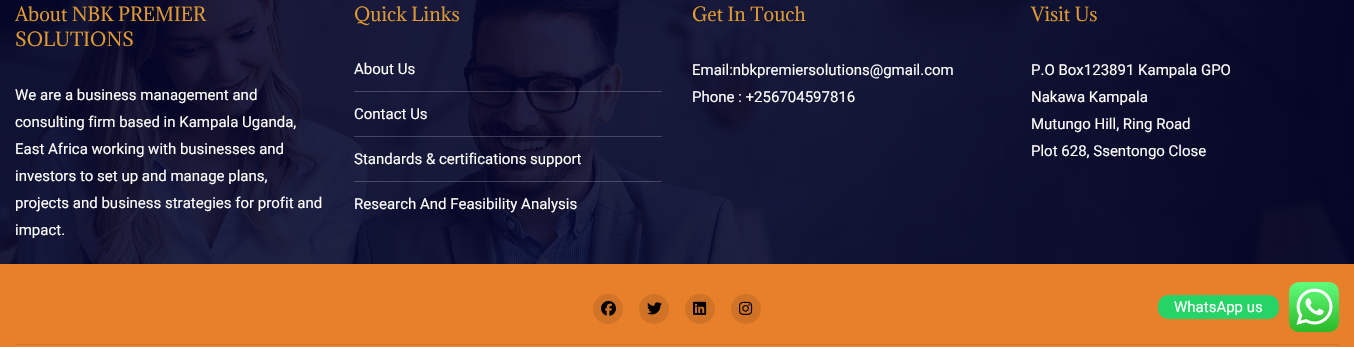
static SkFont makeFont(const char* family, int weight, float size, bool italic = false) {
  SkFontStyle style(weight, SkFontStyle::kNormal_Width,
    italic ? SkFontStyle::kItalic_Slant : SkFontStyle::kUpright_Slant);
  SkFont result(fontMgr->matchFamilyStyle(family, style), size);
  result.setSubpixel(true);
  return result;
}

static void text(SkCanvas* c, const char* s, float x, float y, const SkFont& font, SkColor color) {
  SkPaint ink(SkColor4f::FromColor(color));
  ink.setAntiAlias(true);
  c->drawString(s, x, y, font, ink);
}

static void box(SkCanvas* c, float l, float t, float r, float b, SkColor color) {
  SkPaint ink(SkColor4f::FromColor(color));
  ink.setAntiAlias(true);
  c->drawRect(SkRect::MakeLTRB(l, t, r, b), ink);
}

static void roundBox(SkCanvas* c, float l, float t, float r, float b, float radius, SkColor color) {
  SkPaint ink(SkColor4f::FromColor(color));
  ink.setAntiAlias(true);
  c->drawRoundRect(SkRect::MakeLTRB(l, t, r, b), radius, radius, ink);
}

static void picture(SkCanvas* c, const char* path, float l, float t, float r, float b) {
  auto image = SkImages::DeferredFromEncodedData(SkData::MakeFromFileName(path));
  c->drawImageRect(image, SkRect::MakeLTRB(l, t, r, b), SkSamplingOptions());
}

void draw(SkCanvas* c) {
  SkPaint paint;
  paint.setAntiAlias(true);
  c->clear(0xffffffff);
  picture(c, "img_01.png", 0, 0, 1354, 264);
  box(c, 0, 0, 1354, 264, 0xe305062b);
  SkFont face1 = makeFont("Adamina", 400, 18);
  text(c, "About NBK PREMIER", 15, 21, face1, 0xffdd9933);
  text(c, "SOLUTIONS", 15, 46, face1, 0xffdd9933);
  SkFont face2 = makeFont("Roboto", 400, 15);
  text(c, "We are a business management and", 15, 100, face2, 0xffffffff);
  text(c, "consulting firm based in Kampala Uganda,", 15, 127, face2, 0xffffffff);
  text(c, "East Africa working with businesses and", 15, 154, face2, 0xffffffff);
  text(c, "investors to set up and manage plans,", 15, 181, face2, 0xffffffff);
  text(c, "projects and business strategies for profit and", 15, 208, face2, 0xffffffff);
  text(c, "impact.", 15, 235, face2, 0xffffffff);
  text(c, "Quick Links", 354, 21, face1, 0xffdd9933);
  box(c, 354, 91, 662, 92, 0x33ffffff);
  text(c, "About Us", 354, 74, face2, 0xffffffff);
  box(c, 354, 136, 662, 137, 0x33ffffff);
  text(c, "Contact Us", 354, 119, face2, 0xffffffff);
  box(c, 354, 181, 662, 182, 0x33ffffff);
  text(c, "Standards & certifications support", 354, 164, face2, 0xffffffff);
  text(c, "Research And Feasibility Analysis", 354, 209, face2, 0xffffffff);
  text(c, "Get In Touch", 692, 21, face1, 0xffdd9933);
  text(c, "Email:nbkpremiersolutions@gmail.com", 692, 75, face2, 0xffffffff);
  text(c, "Phone : +256704597816", 692, 102, face2, 0xffffffff);
  text(c, "Visit Us", 1031, 21, face1, 0xffdd9933);
  text(c, "P.O Box123891 Kampala GPO", 1031, 75, face2, 0xffffffff);
  text(c, "Nakawa Kampala", 1031, 102, face2, 0xffffffff);
  text(c, "Mutungo Hill, Ring Road", 1031, 129, face2, 0xffffffff);
  text(c, "Plot 628, Ssentongo Close", 1031, 156, face2, 0xffffffff);
  box(c, 0, 264, 1354, 347, 0xffe8802b);
  box(c, 15, 344, 1339, 345, 0xffd17327);
  paint.setColor(0xffd17327);
  c->drawCircle(608, 309, 15, paint);
  picture(c, "img_02.png", 601, 300, 616, 316);
  c->drawCircle(654, 309, 15, paint);
  picture(c, "img_03.png", 647, 302, 662, 315);
  c->drawCircle(700, 309, 15, paint);
  picture(c, "img_04.png", 693, 301, 707, 315);
  c->drawCircle(746, 309, 15, paint);
  picture(c, "img_05.png", 739, 301, 753, 315);
  roundBox(c, 1158, 295, 1279, 319, 10, 0xff25d366);
  text(c, "WhatsApp us", 1174, 312, face2, 0xffffffff);
  picture(c, "img_06.png", 1289, 282, 1339, 332);
}
